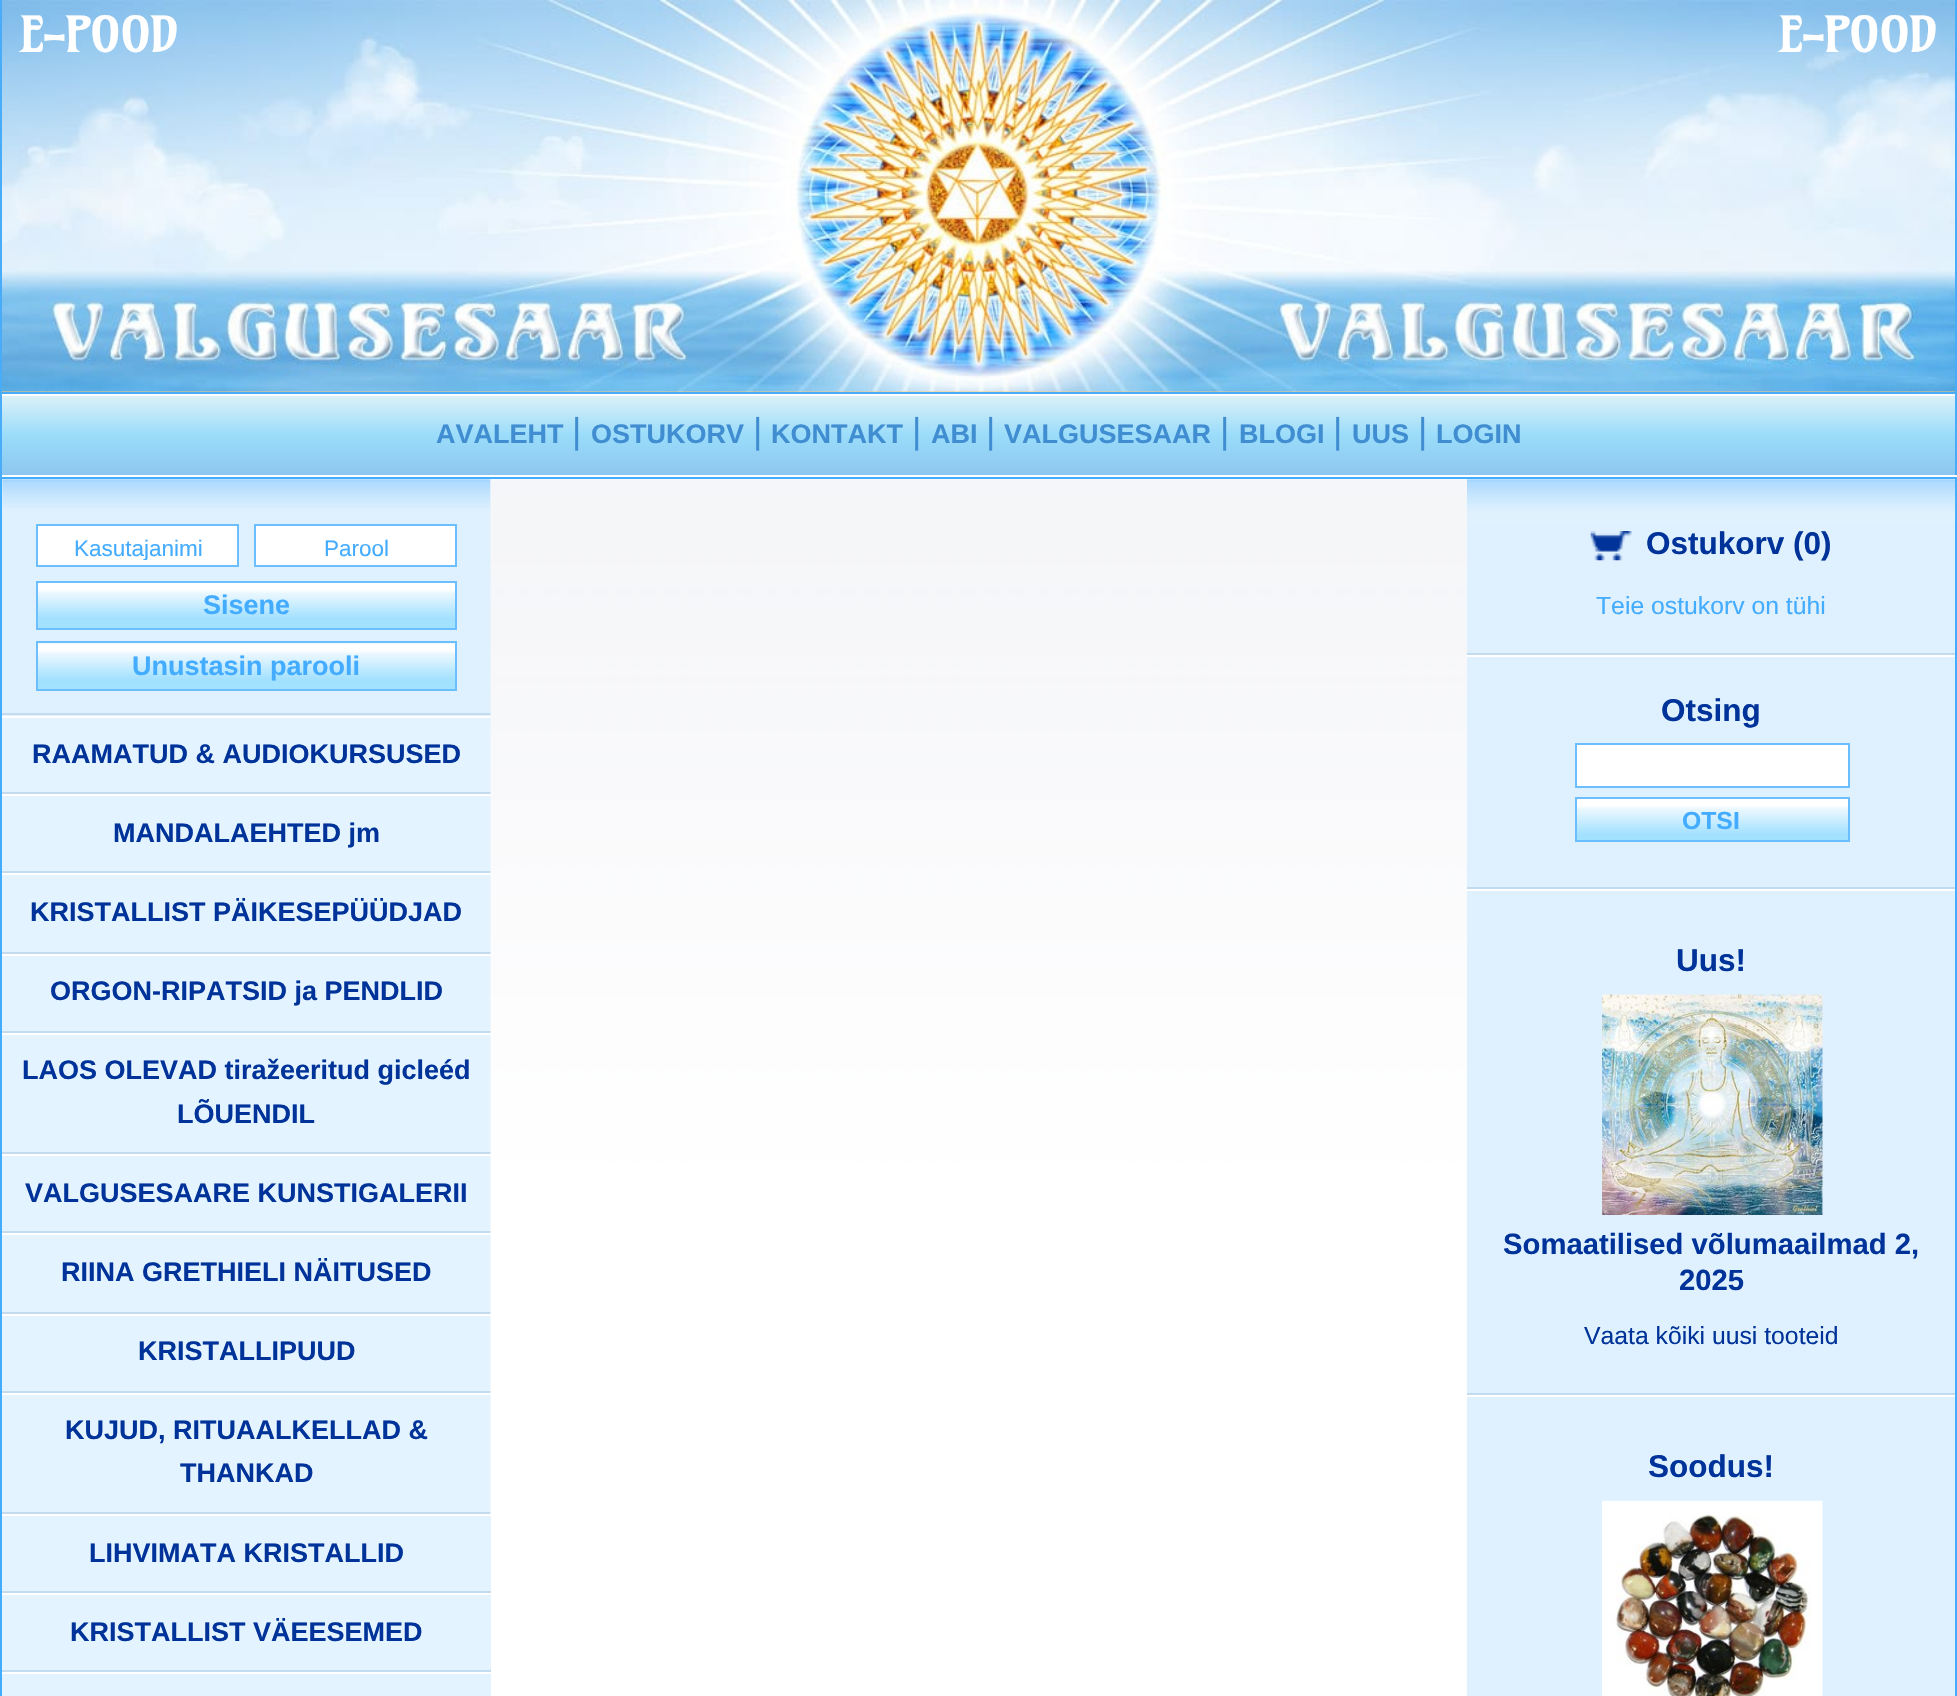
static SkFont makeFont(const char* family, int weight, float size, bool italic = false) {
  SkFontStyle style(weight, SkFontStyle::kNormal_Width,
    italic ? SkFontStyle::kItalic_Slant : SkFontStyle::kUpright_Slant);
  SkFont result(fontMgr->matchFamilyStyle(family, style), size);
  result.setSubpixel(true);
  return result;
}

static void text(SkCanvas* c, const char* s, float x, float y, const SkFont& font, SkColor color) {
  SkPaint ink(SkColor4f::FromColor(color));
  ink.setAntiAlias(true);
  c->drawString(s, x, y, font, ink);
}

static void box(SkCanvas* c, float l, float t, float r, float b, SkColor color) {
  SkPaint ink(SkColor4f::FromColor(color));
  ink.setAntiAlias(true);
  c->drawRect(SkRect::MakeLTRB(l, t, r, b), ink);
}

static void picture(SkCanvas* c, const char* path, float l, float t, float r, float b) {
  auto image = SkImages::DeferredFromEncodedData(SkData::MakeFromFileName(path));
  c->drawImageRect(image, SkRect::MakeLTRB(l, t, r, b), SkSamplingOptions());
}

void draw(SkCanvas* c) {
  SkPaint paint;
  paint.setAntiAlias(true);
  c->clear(0xffffffff);
  picture(c, "img_01.png", 2, 391, 1955, 392);
  picture(c, "img_02.png", 2, 0, 1955, 392);
  box(c, 1955, 0, 1957, 477, 0xff49acf8);
  box(c, 0, 392, 1957, 394, 0xff49acf8);
  box(c, 0, 0, 2, 477, 0xff49acf8);
  SkFont face1 = makeFont("Amarante", 700, 47);
  text(c, "E-POOD", 20, 52, face1, 0xffffffff);
  text(c, "E-POOD", 1779, 52, face1, 0xffffffff);
  {
    const SkColor colors[] = {0xffdbf1f8, 0xff9adcfa, 0xff8dc6ef};
    const float stops[] = {0, 0.5f, 1};
    const SkPoint ends[] = {{979, 396}, {979, 475}};
    paint.setShader(SkGradientShader::MakeLinear(ends, colors, stops, 3, SkTileMode::kClamp));
    paint.setAlpha(255);
  }
  c->drawRect(SkRect::MakeLTRB(2, 396, 1955, 475), paint);
  box(c, 1955, 475, 1957, 477, 0xffffffff);
  SkFont face2 = makeFont("Liberation Sans", 700, 27);
  text(c, "AVALEHT", 436, 443, face2, 0xff408ed1);
  SkFont face3 = makeFont("Liberation Sans", 400, 36);
  text(c, "|", 572, 443, face3, 0xff408ed1);
  text(c, "OSTUKORV", 591, 443, face2, 0xff408ed1);
  text(c, "|", 753, 443, face3, 0xff408ed1);
  text(c, "KONTAKT", 771, 443, face2, 0xff408ed1);
  text(c, "|", 912, 443, face3, 0xff408ed1);
  text(c, "ABI", 931, 443, face2, 0xff408ed1);
  text(c, "|", 986, 443, face3, 0xff408ed1);
  text(c, "VALGUSESAAR", 1004, 443, face2, 0xff408ed1);
  text(c, "|", 1220, 443, face3, 0xff408ed1);
  text(c, "BLOGI", 1239, 443, face2, 0xff408ed1);
  text(c, "|", 1333, 443, face3, 0xff408ed1);
  text(c, "UUS", 1352, 443, face2, 0xff408ed1);
  text(c, "|", 1418, 443, face3, 0xff408ed1);
  text(c, "LOGIN", 1436, 443, face2, 0xff408ed1);
  box(c, 0, 477, 1957, 479, 0xff42acff);
  box(c, 1955, 477, 1957, 1696, 0xff42acff);
  box(c, 0, 477, 2, 1696, 0xff42acff);
  box(c, 2, 479, 491, 713, 0xffdff1ff);
  picture(c, "img_03.png", 2, 479, 491, 509);
  paint.setShader(nullptr);
  paint.setColor(0xffffffff);
  c->drawRect(SkRect::MakeLTRB(37, 525, 238, 566), paint);
  paint.setStyle(SkPaint::kStroke_Style);
  paint.setStrokeWidth(2);
  paint.setColor(0xff6bbffe);
  c->drawRect(SkRect::MakeLTRB(37, 525, 238, 566), paint);
  c->save();
  c->clipRect(SkRect::MakeLTRB(41, 536, 236, 560));
  SkFont face4 = makeFont("Liberation Sans", 400, 22.5f);
  text(c, "Kasutajanimi", 74, 556, face4, 0xff44acff);
  c->restore();
  paint.setStyle(SkPaint::kFill_Style);
  paint.setColor(0xffffffff);
  c->drawRect(SkRect::MakeLTRB(255, 525, 456, 566), paint);
  paint.setStyle(SkPaint::kStroke_Style);
  paint.setColor(0xff6bbffe);
  c->drawRect(SkRect::MakeLTRB(255, 525, 456, 566), paint);
  text(c, "Parool", 324, 556, face4, 0xff44acff);
  picture(c, "img_04.png", 38, 583, 455, 628);
  c->drawRect(SkRect::MakeLTRB(37, 582, 456, 629), paint);
  text(c, "Sisene", 203, 614, face2, 0xff44acff);
  picture(c, "img_05.png", 38, 643, 455, 689);
  c->drawRect(SkRect::MakeLTRB(37, 642, 456, 690), paint);
  text(c, "Unustasin parooli", 132, 675, face2, 0xff44acff);
  box(c, 2, 715, 491, 1696, 0xffe3f3ff);
  box(c, 2, 713, 491, 715, 0xffc2dbef);
  box(c, 2, 716, 491, 718, 0xffffffff);
  box(c, 2, 792, 491, 794, 0xffc2dbef);
  text(c, "RAAMATUD & AUDIOKURSUSED", 32, 763, face2, 0xff003399);
  box(c, 2, 794, 491, 796, 0xffffffff);
  box(c, 2, 871, 491, 873, 0xffc2dbef);
  text(c, "MANDALAEHTED jm", 113, 842, face2, 0xff003399);
  box(c, 2, 873, 491, 875, 0xffffffff);
  box(c, 2, 952, 491, 954, 0xffc2dbef);
  text(c, "KRISTALLIST PÄIKESEPÜÜDJAD", 30, 921, face2, 0xff003399);
  box(c, 2, 954, 491, 956, 0xffffffff);
  box(c, 2, 1031, 491, 1033, 0xffc2dbef);
  text(c, "ORGON-RIPATSID ja PENDLID", 50, 1000, face2, 0xff003399);
  box(c, 2, 1033, 491, 1035, 0xffffffff);
  box(c, 2, 1152, 491, 1154, 0xffc2dbef);
  text(c, "LAOS OLEVAD tiražeeritud gicleéd", 22, 1079, face2, 0xff003399);
  text(c, "LÕUENDIL", 177, 1123, face2, 0xff003399);
  box(c, 2, 1154, 491, 1156, 0xffffffff);
  box(c, 2, 1231, 491, 1233, 0xffc2dbef);
  text(c, "VALGUSESAARE KUNSTIGALERII", 25, 1202, face2, 0xff003399);
  box(c, 2, 1233, 491, 1235, 0xffffffff);
  box(c, 2, 1312, 491, 1314, 0xffc2dbef);
  text(c, "RIINA GRETHIELI NÄITUSED", 61, 1281, face2, 0xff003399);
  box(c, 2, 1314, 491, 1316, 0xffffffff);
  box(c, 2, 1391, 491, 1393, 0xffc2dbef);
  text(c, "KRISTALLIPUUD", 138, 1360, face2, 0xff003399);
  box(c, 2, 1393, 491, 1395, 0xffffffff);
  box(c, 2, 1512, 491, 1514, 0xffc2dbef);
  text(c, "KUJUD, RITUAALKELLAD &", 65, 1439, face2, 0xff003399);
  text(c, "THANKAD", 180, 1482, face2, 0xff003399);
  box(c, 2, 1514, 491, 1516, 0xffffffff);
  box(c, 2, 1591, 491, 1593, 0xffc2dbef);
  text(c, "LIHVIMATA KRISTALLID", 89, 1562, face2, 0xff003399);
  box(c, 2, 1593, 491, 1595, 0xffffffff);
  box(c, 2, 1670, 491, 1672, 0xffc2dbef);
  text(c, "KRISTALLIST VÄEESEMED", 70, 1641, face2, 0xff003399);
  box(c, 2, 1672, 491, 1674, 0xffffffff);
  picture(c, "img_06.png", 490, 479, 1467, 1514);
  box(c, 1467, 479, 1955, 1696, 0xffdff1ff);
  picture(c, "img_07.png", 1467, 479, 1956, 522);
  box(c, 1467, 653, 1955, 655, 0xffc2dbef);
  picture(c, "img_08.png", 1590, 531, 1632, 561);
  SkFont face5 = makeFont("Liberation Sans", 700, 31.5f);
  text(c, "Ostukorv (0)", 1646, 554, face5, 0xff003399);
  SkFont face6 = makeFont("Liberation Sans", 400, 24.75f);
  text(c, "Teie ostukorv on tühi", 1596, 614, face6, 0xff44acff);
  box(c, 1467, 655, 1955, 657, 0xffffffff);
  box(c, 1467, 887, 1955, 889, 0xffc2dbef);
  text(c, "Otsing", 1661, 721, face5, 0xff003399);
  paint.setStyle(SkPaint::kFill_Style);
  paint.setColor(0xffffffff);
  c->drawRect(SkRect::MakeLTRB(1576, 744, 1849, 787), paint);
  paint.setStyle(SkPaint::kStroke_Style);
  paint.setColor(0xff6bbffe);
  c->drawRect(SkRect::MakeLTRB(1576, 744, 1849, 787), paint);
  box(c, 1577, 799, 1848, 806, 0xffffffff);
  picture(c, "img_09.png", 1577, 806, 1848, 840);
  c->drawRect(SkRect::MakeLTRB(1576, 798, 1849, 841), paint);
  SkFont face7 = makeFont("Liberation Sans", 700, 24.75f);
  text(c, "OTSI", 1682, 829, face7, 0xff44acff);
  box(c, 1467, 889, 1955, 891, 0xffffffff);
  box(c, 1467, 1393, 1955, 1395, 0xffc2dbef);
  text(c, "Uus!", 1676, 971, face5, 0xff003399);
  picture(c, "img_10.png", 1602, 994, 1823, 1215);
  SkFont face8 = makeFont("Liberation Sans", 700, 29.25f);
  text(c, "Somaatilised võlumaailmad 2,", 1503, 1254, face8, 0xff003399);
  text(c, "2025", 1679, 1290, face8, 0xff003399);
  text(c, "Vaata kõiki uusi tooteid", 1584, 1344, face6, 0xff003399);
  box(c, 1467, 1395, 1955, 1397, 0xffffffff);
  text(c, "Soodus!", 1648, 1477, face5, 0xff003399);
  picture(c, "img_11.png", 1602, 1500, 1823, 1696);
}
